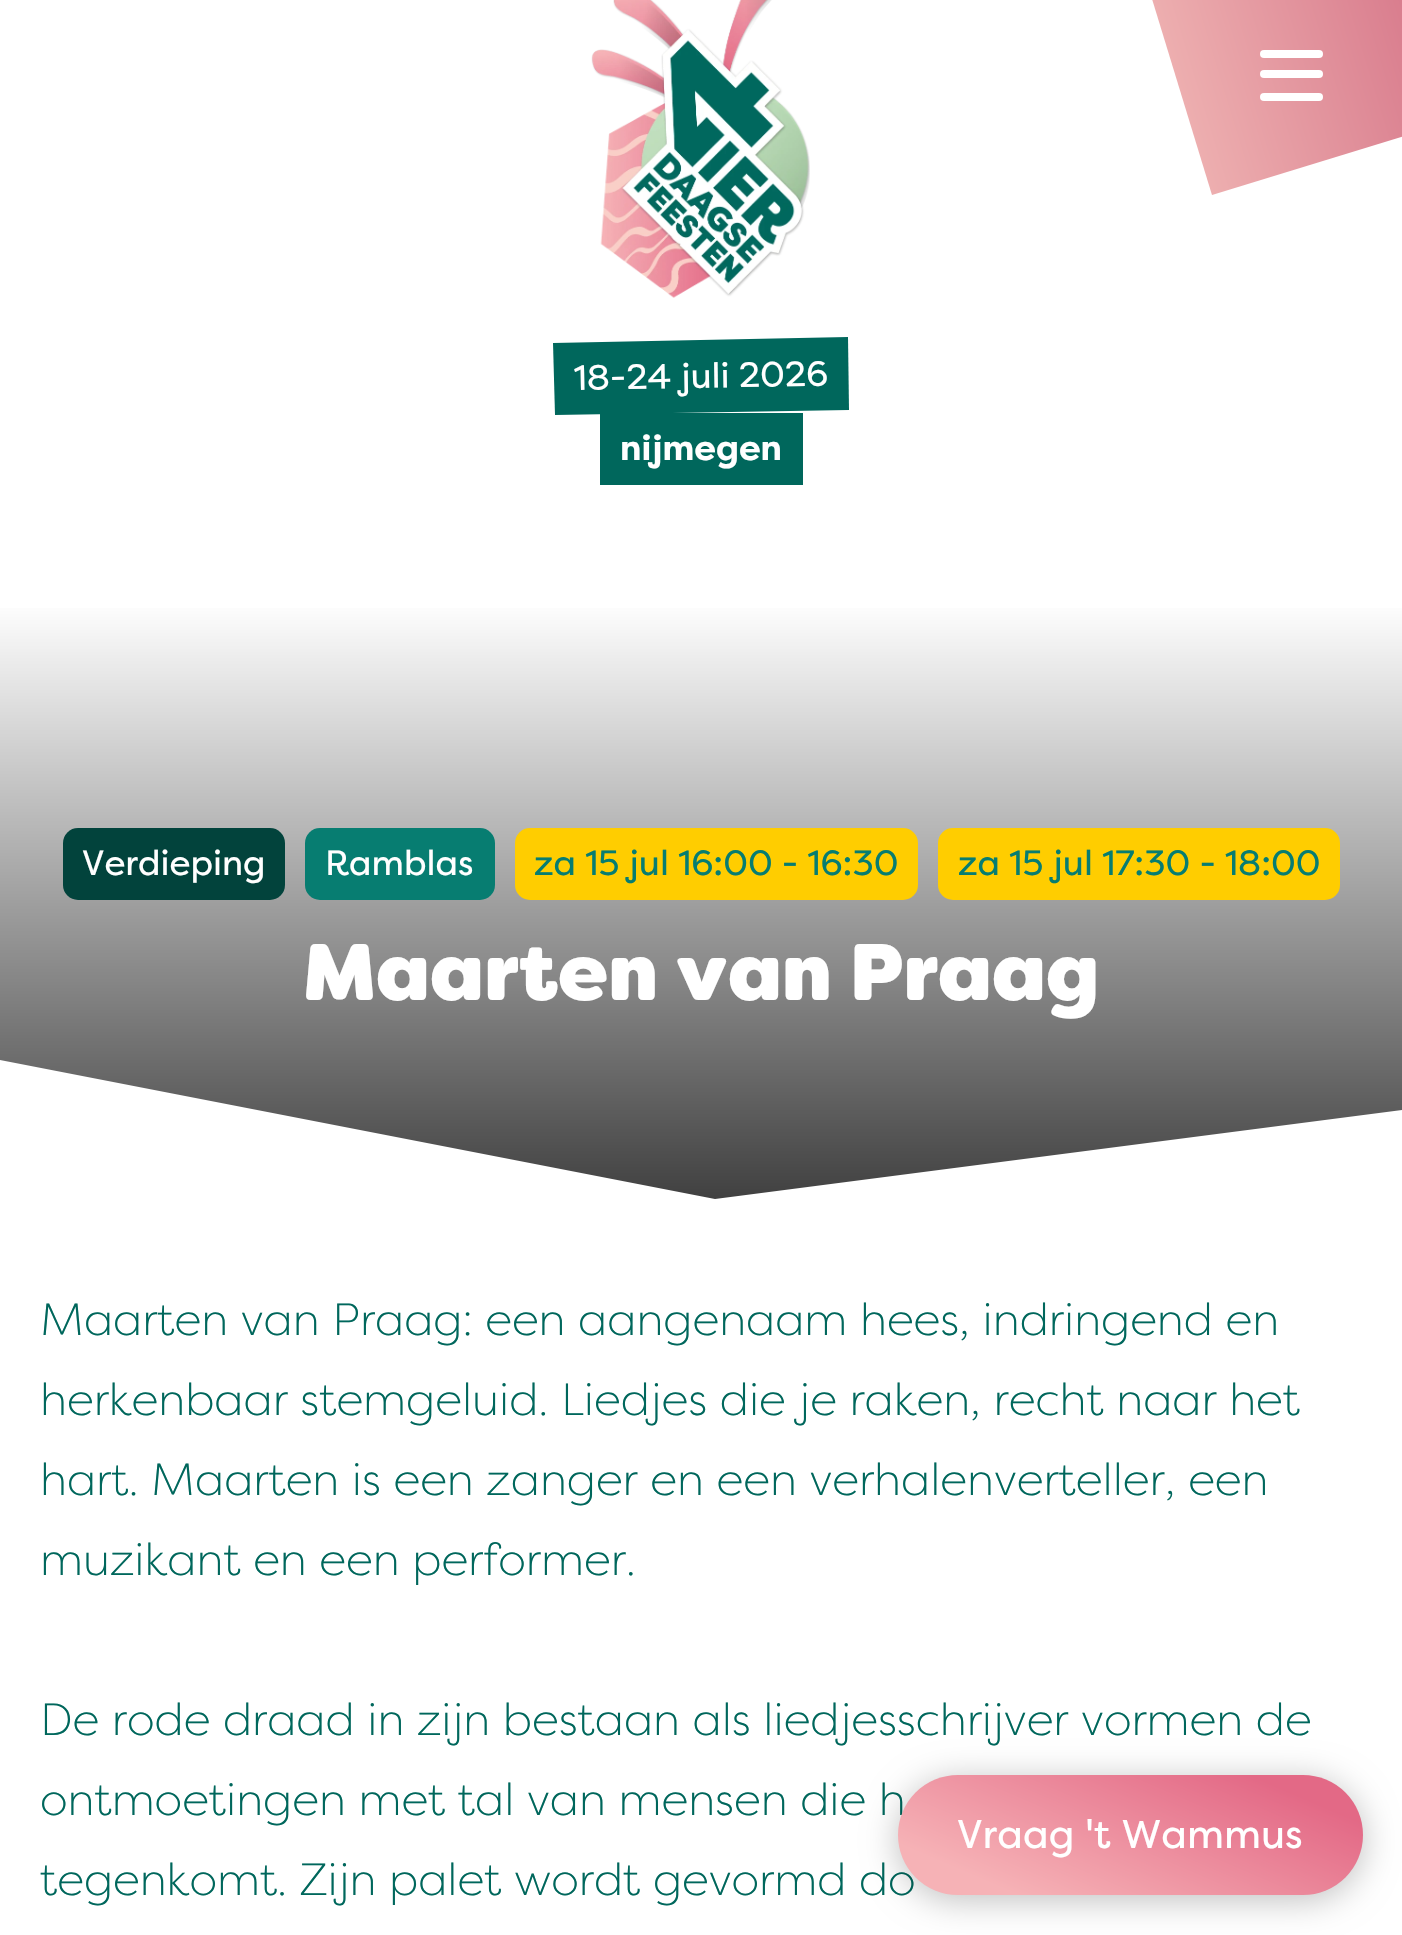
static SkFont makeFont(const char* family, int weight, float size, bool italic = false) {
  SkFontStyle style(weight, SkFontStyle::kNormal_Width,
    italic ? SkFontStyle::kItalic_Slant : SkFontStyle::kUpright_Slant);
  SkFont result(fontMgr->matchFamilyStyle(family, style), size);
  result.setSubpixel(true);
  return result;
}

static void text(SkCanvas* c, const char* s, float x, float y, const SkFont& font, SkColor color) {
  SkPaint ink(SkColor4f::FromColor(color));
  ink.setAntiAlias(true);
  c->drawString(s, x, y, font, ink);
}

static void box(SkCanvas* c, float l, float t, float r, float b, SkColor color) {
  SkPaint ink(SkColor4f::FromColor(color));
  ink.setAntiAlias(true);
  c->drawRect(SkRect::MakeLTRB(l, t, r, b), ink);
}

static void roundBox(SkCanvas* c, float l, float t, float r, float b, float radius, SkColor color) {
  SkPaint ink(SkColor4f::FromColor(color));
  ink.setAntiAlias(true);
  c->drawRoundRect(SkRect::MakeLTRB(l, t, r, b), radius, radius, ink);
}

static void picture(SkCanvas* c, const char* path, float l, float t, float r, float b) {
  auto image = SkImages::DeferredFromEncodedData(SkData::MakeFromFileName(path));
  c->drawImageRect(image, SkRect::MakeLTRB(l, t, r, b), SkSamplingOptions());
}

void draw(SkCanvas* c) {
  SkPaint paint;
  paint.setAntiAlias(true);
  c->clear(0xffffffff);
  {
    const SkColor colors[] = {0xffd67689, 0xffedaeaf};
    const float stops[] = {0, 1};
    const SkPoint ends[] = {{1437, -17}, {1172, 64}};
    paint.setShader(SkGradientShader::MakeLinear(ends, colors, stops, 2, SkTileMode::kClamp));
    paint.setAlpha(255);
  }
  c->drawPath(SkPathBuilder().moveTo(1130, -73).lineTo(1398, -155).lineTo(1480, 113).lineTo(1212, 195).close().detach(), paint);
  roundBox(c, 1260, 70, 1323, 78, 4, 0xffffffff);
  roundBox(c, 1260, 50, 1323, 58, 4, 0xffffffff);
  roundBox(c, 1260, 93, 1323, 101, 4, 0xffffffff);
  picture(c, "img_01.png", 591, 0, 810, 298);
  box(c, 600, 413, 803, 485, 0xff00675c);
  paint.setShader(nullptr);
  paint.setColor(0xff00675c);
  c->drawPath(SkPathBuilder().moveTo(553, 343).lineTo(848, 337).lineTo(849, 410).lineTo(555, 415).close().detach(), paint);
  SkFont face1 = makeFont("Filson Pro", 400, 35);
  c->save();
  c->rotate(-1, 574, 390);
  text(c, "18-24 juli 2026", 574, 390, face1, 0xffffffff);
  c->restore();
  SkFont face2 = makeFont("Filson Pro", 700, 35);
  text(c, "nijmegen", 620, 460, face2, 0xffffffff);
  {
    const SkColor colors[] = {0xff404040, 0xffffffff};
    const float stops[] = {0, 1};
    const SkPoint ends[] = {{701, 1200}, {701, 600}};
    paint.setShader(SkGradientShader::MakeLinear(ends, colors, stops, 2, SkTileMode::kClamp));
    paint.setAlpha(255);
  }
  c->drawRect(SkRect::MakeLTRB(0, 608, 1402, 1199), paint);
  roundBox(c, 63, 828, 285, 900, 15, 0xff02433c);
  text(c, "Verdieping", 82, 875, face1, 0xffffffff);
  roundBox(c, 305, 828, 495, 900, 15, 0xff077d71);
  text(c, "Ramblas", 325, 875, face1, 0xffffffff);
  roundBox(c, 515, 828, 918, 900, 15, 0xffffcd00);
  text(c, "za 15 jul 16:00 - 16:30", 534, 875, face1, 0xff077d71);
  roundBox(c, 938, 828, 1340, 900, 15, 0xffffcd00);
  text(c, "za 15 jul 17:30 - 18:00", 958, 875, face1, 0xff077d71);
  SkFont face3 = makeFont("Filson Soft", 900, 80);
  text(c, "Maarten van Praag", 303, 1000, face3, 0xffffffff);
  paint.setShader(nullptr);
  paint.setColor(0xffffffff);
  c->drawPath(SkPathBuilder(SkPathFillType::kEvenOdd).moveTo(0, 1060).lineTo(0, 1203).lineTo(1402, 1203).lineTo(1402, 1110).lineTo(715, 1199).close().detach(), paint);
  SkFont face4 = makeFont("Filson Pro", 300, 45);
  text(c, "Maarten van Praag: een aangenaam hees, indringend en", 40, 1335, face4, 0xff00675c);
  text(c, "herkenbaar stemgeluid. Liedjes die je raken, recht naar het", 40, 1415, face4, 0xff00675c);
  text(c, "hart. Maarten is een zanger en een verhalenverteller, een", 40, 1495, face4, 0xff00675c);
  text(c, "muzikant en een performer.", 40, 1575, face4, 0xff00675c);
  text(c, "De rode draad in zijn bestaan als liedjesschrijver vormen de", 40, 1735, face4, 0xff00675c);
  text(c, "ontmoetingen met tal van mensen die h", 40, 1815, face4, 0xff00675c);
  text(c, "tegenkomt. Zijn palet wordt gevormd do", 40, 1895, face4, 0xff00675c);
  paint.setColor(0x40000000);
  paint.setMaskFilter(SkMaskFilter::MakeBlur(kNormal_SkBlurStyle, 17.5f));
  c->drawRoundRect(SkRect::MakeLTRB(898, 1780, 1363, 1900), 60, 60, paint);
  paint.setMaskFilter(nullptr);
  {
    const SkColor colors[] = {0xffe36986, 0xfff6b2b6};
    const float stops[] = {0.15f, 0.84f};
    const SkPoint ends[] = {{1188, 1700}, {1072, 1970}};
    paint.setShader(SkGradientShader::MakeLinear(ends, colors, stops, 2, SkTileMode::kClamp));
    paint.setAlpha(255);
  }
  c->drawRoundRect(SkRect::MakeLTRB(898, 1775, 1363, 1895), 60, 60, paint);
  SkFont face5 = makeFont("Filson Pro", 400, 40);
  text(c, "Vraag 't Wammus", 957, 1848, face5, 0xffffffff);
}
